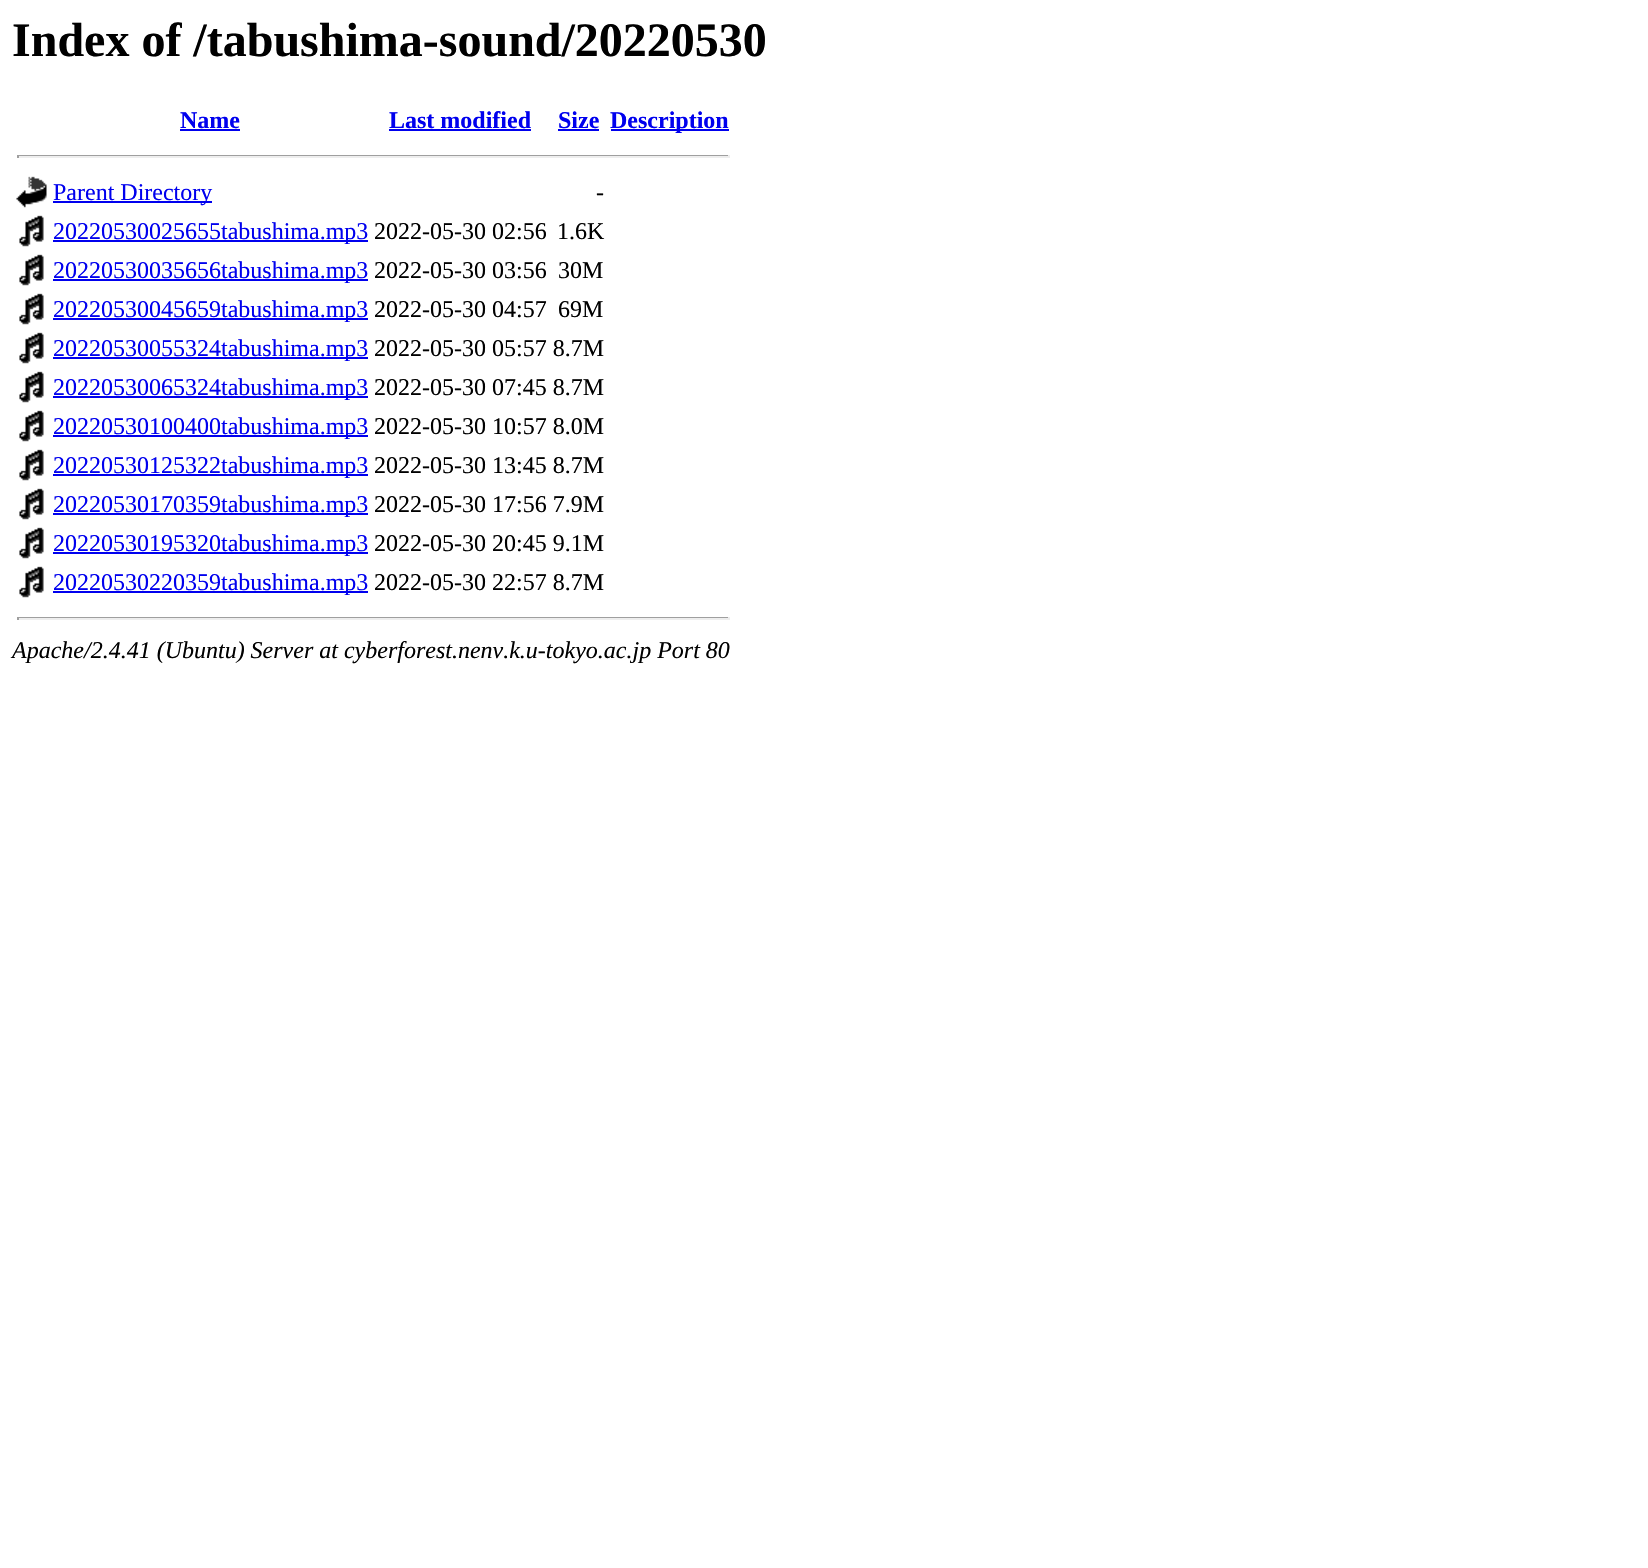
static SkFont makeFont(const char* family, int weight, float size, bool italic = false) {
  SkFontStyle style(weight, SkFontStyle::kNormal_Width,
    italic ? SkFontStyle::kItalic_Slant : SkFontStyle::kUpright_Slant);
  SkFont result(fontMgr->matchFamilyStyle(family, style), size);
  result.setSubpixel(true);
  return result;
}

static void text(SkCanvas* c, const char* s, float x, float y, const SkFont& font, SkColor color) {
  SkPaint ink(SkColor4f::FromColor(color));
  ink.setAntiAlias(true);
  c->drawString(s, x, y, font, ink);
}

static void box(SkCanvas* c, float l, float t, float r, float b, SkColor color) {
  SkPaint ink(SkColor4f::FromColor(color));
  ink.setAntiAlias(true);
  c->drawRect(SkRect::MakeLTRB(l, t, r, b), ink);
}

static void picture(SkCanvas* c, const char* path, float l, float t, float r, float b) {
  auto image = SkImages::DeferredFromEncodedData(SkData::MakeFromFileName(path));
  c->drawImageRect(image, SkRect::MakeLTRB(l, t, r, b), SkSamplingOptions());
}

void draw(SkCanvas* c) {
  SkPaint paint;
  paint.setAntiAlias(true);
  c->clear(0xffffffff);
  SkFont face1 = makeFont("Liberation Serif", 700, 48);
  text(c, "Index of /tabushima-sound/20220530", 12, 56, face1, 0xff000000);
  SkFont face2 = makeFont("Liberation Serif", 700, 24);
  text(c, "Name", 180, 128, face2, 0xff0000ee);
  box(c, 180, 129, 240, 131, 0xff0000ee);
  text(c, "Last modified", 389, 128, face2, 0xff0000ee);
  box(c, 389, 129, 531, 131, 0xff0000ee);
  text(c, "Size", 558, 128, face2, 0xff0000ee);
  box(c, 558, 129, 599, 131, 0xff0000ee);
  box(c, 611, 129, 729, 131, 0xff0000ee);
  text(c, "Description", 610, 128, face2, 0xff0000ee);
  box(c, 17, 155, 729, 156, 0xff9f9f9f);
  box(c, 728, 155, 730, 158, 0xffeeeeee);
  box(c, 17, 156, 729, 158, 0xffeeeeee);
  box(c, 17, 155, 19, 158, 0xff9f9f9f);
  picture(c, "img_01.png", 16, 176, 47, 208);
  box(c, 53, 201, 212, 203, 0xff0000ee);
  SkFont face3 = makeFont("Liberation Serif", 400, 24);
  text(c, "Parent Directory", 53, 200, face3, 0xff0000ee);
  text(c, "-", 596, 200, face3, 0xff000000);
  picture(c, "img_02.png", 19, 215, 44, 247);
  box(c, 53, 240, 368, 242, 0xff0000ee);
  text(c, "20220530025655tabushima.mp3", 53, 239, face3, 0xff0000ee);
  text(c, "2022-05-30 02:56", 374, 239, face3, 0xff000000);
  text(c, "1.6K", 557, 239, face3, 0xff000000);
  picture(c, "img_02.png", 19, 254, 44, 286);
  box(c, 53, 279, 368, 281, 0xff0000ee);
  text(c, "20220530035656tabushima.mp3", 53, 278, face3, 0xff0000ee);
  text(c, "2022-05-30 03:56", 374, 278, face3, 0xff000000);
  text(c, "30M", 558, 278, face3, 0xff000000);
  picture(c, "img_02.png", 19, 293, 44, 325);
  box(c, 53, 318, 368, 320, 0xff0000ee);
  text(c, "20220530045659tabushima.mp3", 53, 317, face3, 0xff0000ee);
  text(c, "2022-05-30 04:57", 374, 317, face3, 0xff000000);
  text(c, "69M", 558, 317, face3, 0xff000000);
  picture(c, "img_02.png", 19, 332, 44, 364);
  box(c, 53, 357, 368, 359, 0xff0000ee);
  text(c, "20220530055324tabushima.mp3", 53, 356, face3, 0xff0000ee);
  text(c, "2022-05-30 05:57 8.7M", 374, 356, face3, 0xff000000);
  picture(c, "img_02.png", 19, 371, 44, 403);
  box(c, 53, 396, 368, 398, 0xff0000ee);
  text(c, "20220530065324tabushima.mp3", 53, 395, face3, 0xff0000ee);
  text(c, "2022-05-30 07:45 8.7M", 374, 395, face3, 0xff000000);
  picture(c, "img_02.png", 19, 410, 44, 442);
  box(c, 53, 435, 368, 437, 0xff0000ee);
  text(c, "20220530100400tabushima.mp3", 53, 434, face3, 0xff0000ee);
  text(c, "2022-05-30 10:57 8.0M", 374, 434, face3, 0xff000000);
  picture(c, "img_02.png", 19, 449, 44, 481);
  box(c, 53, 474, 368, 476, 0xff0000ee);
  text(c, "20220530125322tabushima.mp3", 53, 473, face3, 0xff0000ee);
  text(c, "2022-05-30 13:45 8.7M", 374, 473, face3, 0xff000000);
  picture(c, "img_02.png", 19, 488, 44, 520);
  box(c, 53, 513, 368, 515, 0xff0000ee);
  text(c, "20220530170359tabushima.mp3", 53, 512, face3, 0xff0000ee);
  text(c, "2022-05-30 17:56 7.9M", 374, 512, face3, 0xff000000);
  picture(c, "img_02.png", 19, 527, 44, 559);
  box(c, 53, 552, 368, 554, 0xff0000ee);
  text(c, "20220530195320tabushima.mp3", 53, 551, face3, 0xff0000ee);
  text(c, "2022-05-30 20:45 9.1M", 374, 551, face3, 0xff000000);
  picture(c, "img_02.png", 19, 566, 44, 598);
  box(c, 53, 591, 368, 593, 0xff0000ee);
  text(c, "20220530220359tabushima.mp3", 53, 590, face3, 0xff0000ee);
  text(c, "2022-05-30 22:57 8.7M", 374, 590, face3, 0xff000000);
  box(c, 17, 617, 729, 618, 0xff9f9f9f);
  box(c, 728, 617, 730, 620, 0xffeeeeee);
  box(c, 17, 618, 729, 620, 0xffeeeeee);
  box(c, 17, 617, 19, 620, 0xff9f9f9f);
  SkFont face4 = makeFont("Liberation Serif", 400, 24, true);
  text(c, "Apache/2.4.41 (Ubuntu) Server at cyberforest.nenv.k.u-tokyo.ac.jp Port 80", 12, 658, face4, 0xff000000);
}
